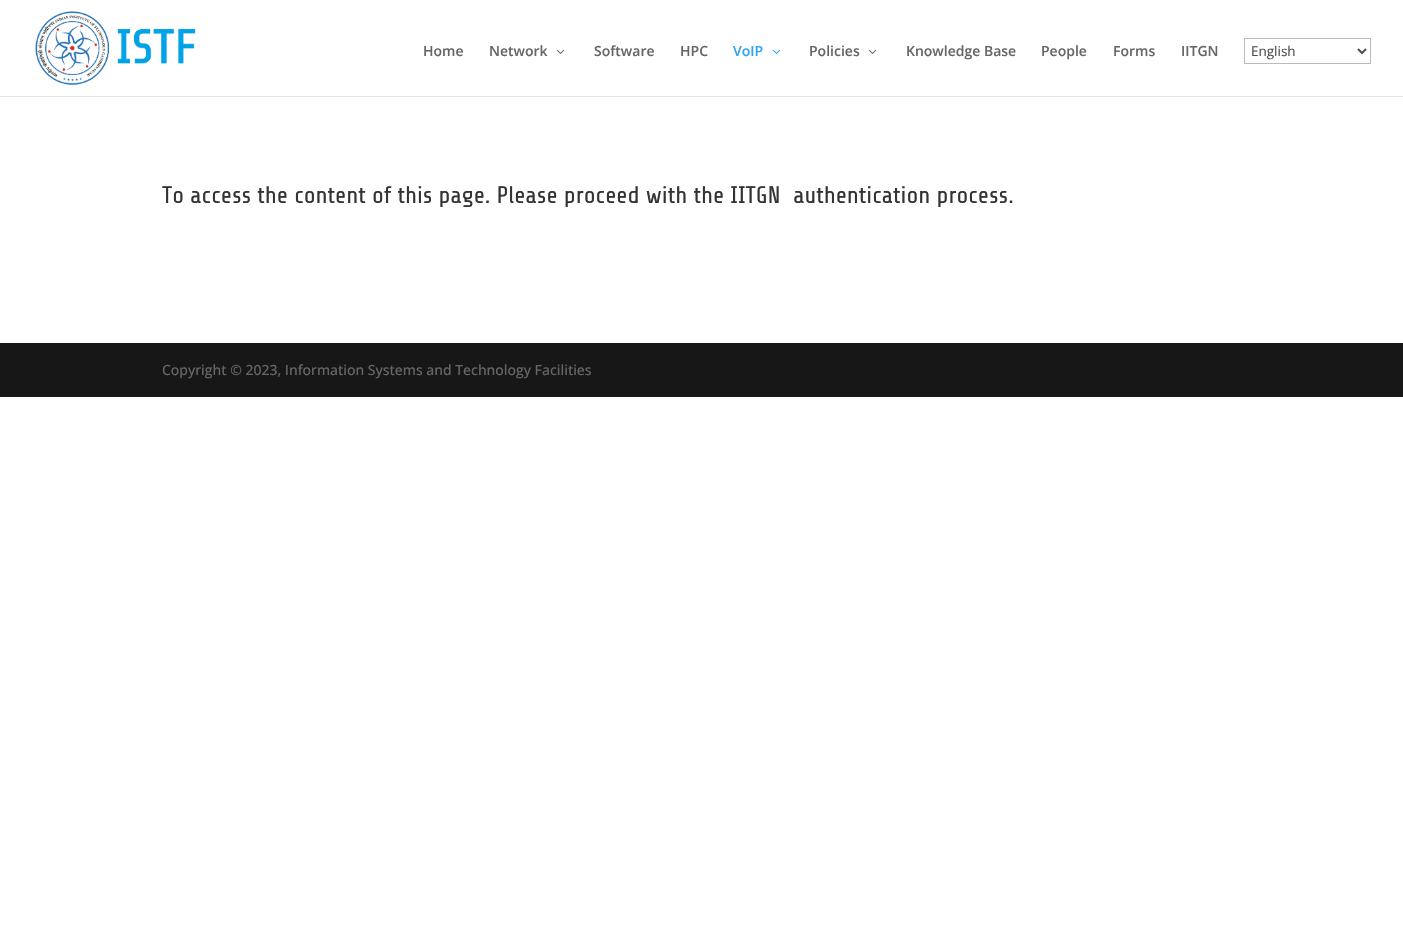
static SkFont makeFont(const char* family, int weight, float size, bool italic = false) {
  SkFontStyle style(weight, SkFontStyle::kNormal_Width,
    italic ? SkFontStyle::kItalic_Slant : SkFontStyle::kUpright_Slant);
  SkFont result(fontMgr->matchFamilyStyle(family, style), size);
  result.setSubpixel(true);
  return result;
}

static void text(SkCanvas* c, const char* s, float x, float y, const SkFont& font, SkColor color) {
  SkPaint ink(SkColor4f::FromColor(color));
  ink.setAntiAlias(true);
  c->drawString(s, x, y, font, ink);
}

static void box(SkCanvas* c, float l, float t, float r, float b, SkColor color) {
  SkPaint ink(SkColor4f::FromColor(color));
  ink.setAntiAlias(true);
  c->drawRect(SkRect::MakeLTRB(l, t, r, b), ink);
}

static void picture(SkCanvas* c, const char* path, float l, float t, float r, float b) {
  auto image = SkImages::DeferredFromEncodedData(SkData::MakeFromFileName(path));
  c->drawImageRect(image, SkRect::MakeLTRB(l, t, r, b), SkSamplingOptions());
}

void draw(SkCanvas* c) {
  SkPaint paint;
  paint.setAntiAlias(true);
  c->clear(0xffffffff);
  box(c, 0, 96, 1403, 97, 0xffe6e6e6);
  picture(c, "img_01.png", 35, 11, 196, 85);
  SkFont face1 = makeFont("Open Sans", 600, 14);
  text(c, "Home", 423, 56, face1, 0xff666666);
  text(c, "Network", 489, 56, face1, 0xff666666);
  picture(c, "img_02.png", 556, 49, 565, 54);
  text(c, "Software", 594, 56, face1, 0xff666666);
  text(c, "HPC", 680, 56, face1, 0xff666666);
  text(c, "VoIP", 733, 56, face1, 0xff2ea3f2);
  picture(c, "img_03.png", 772, 49, 781, 54);
  text(c, "Policies", 809, 56, face1, 0xff666666);
  picture(c, "img_02.png", 868, 49, 877, 54);
  text(c, "Knowledge Base", 906, 56, face1, 0xff666666);
  text(c, "People", 1041, 56, face1, 0xff666666);
  text(c, "Forms", 1113, 56, face1, 0xff666666);
  text(c, "IITGN", 1181, 56, face1, 0xff666666);
  paint.setStyle(SkPaint::kStroke_Style);
  paint.setStrokeWidth(1);
  paint.setColor(0xffbbbbbb);
  c->drawRect(SkRect::MakeLTRB(1244.5f, 38.5f, 1370.5f, 63.5f), paint);
  paint.setStrokeWidth(2);
  paint.setColor(0xff4e4e4e);
  c->drawPath(SkPathBuilder().moveTo(1358, 49).lineTo(1362, 53).lineTo(1366, 49).detach(), paint);
  SkFont face2 = makeFont("Open Sans", 400, 13.5f);
  text(c, "English", 1251, 56, face2, 0xff4e4e4e);
  SkFont face3 = makeFont("Share Tech", 400, 24);
  text(c, "To access the content of this page. Please proceed with the IITGN  authentication process.", 162, 203, face3, 0xff333333);
  box(c, 0, 343, 1403, 397, 0xff171717);
  SkFont face4 = makeFont("Open Sans", 500, 14);
  text(c, "Copyright © 2023, Information Systems and Technology Facilities", 162, 375, face4, 0xff666666);
}
